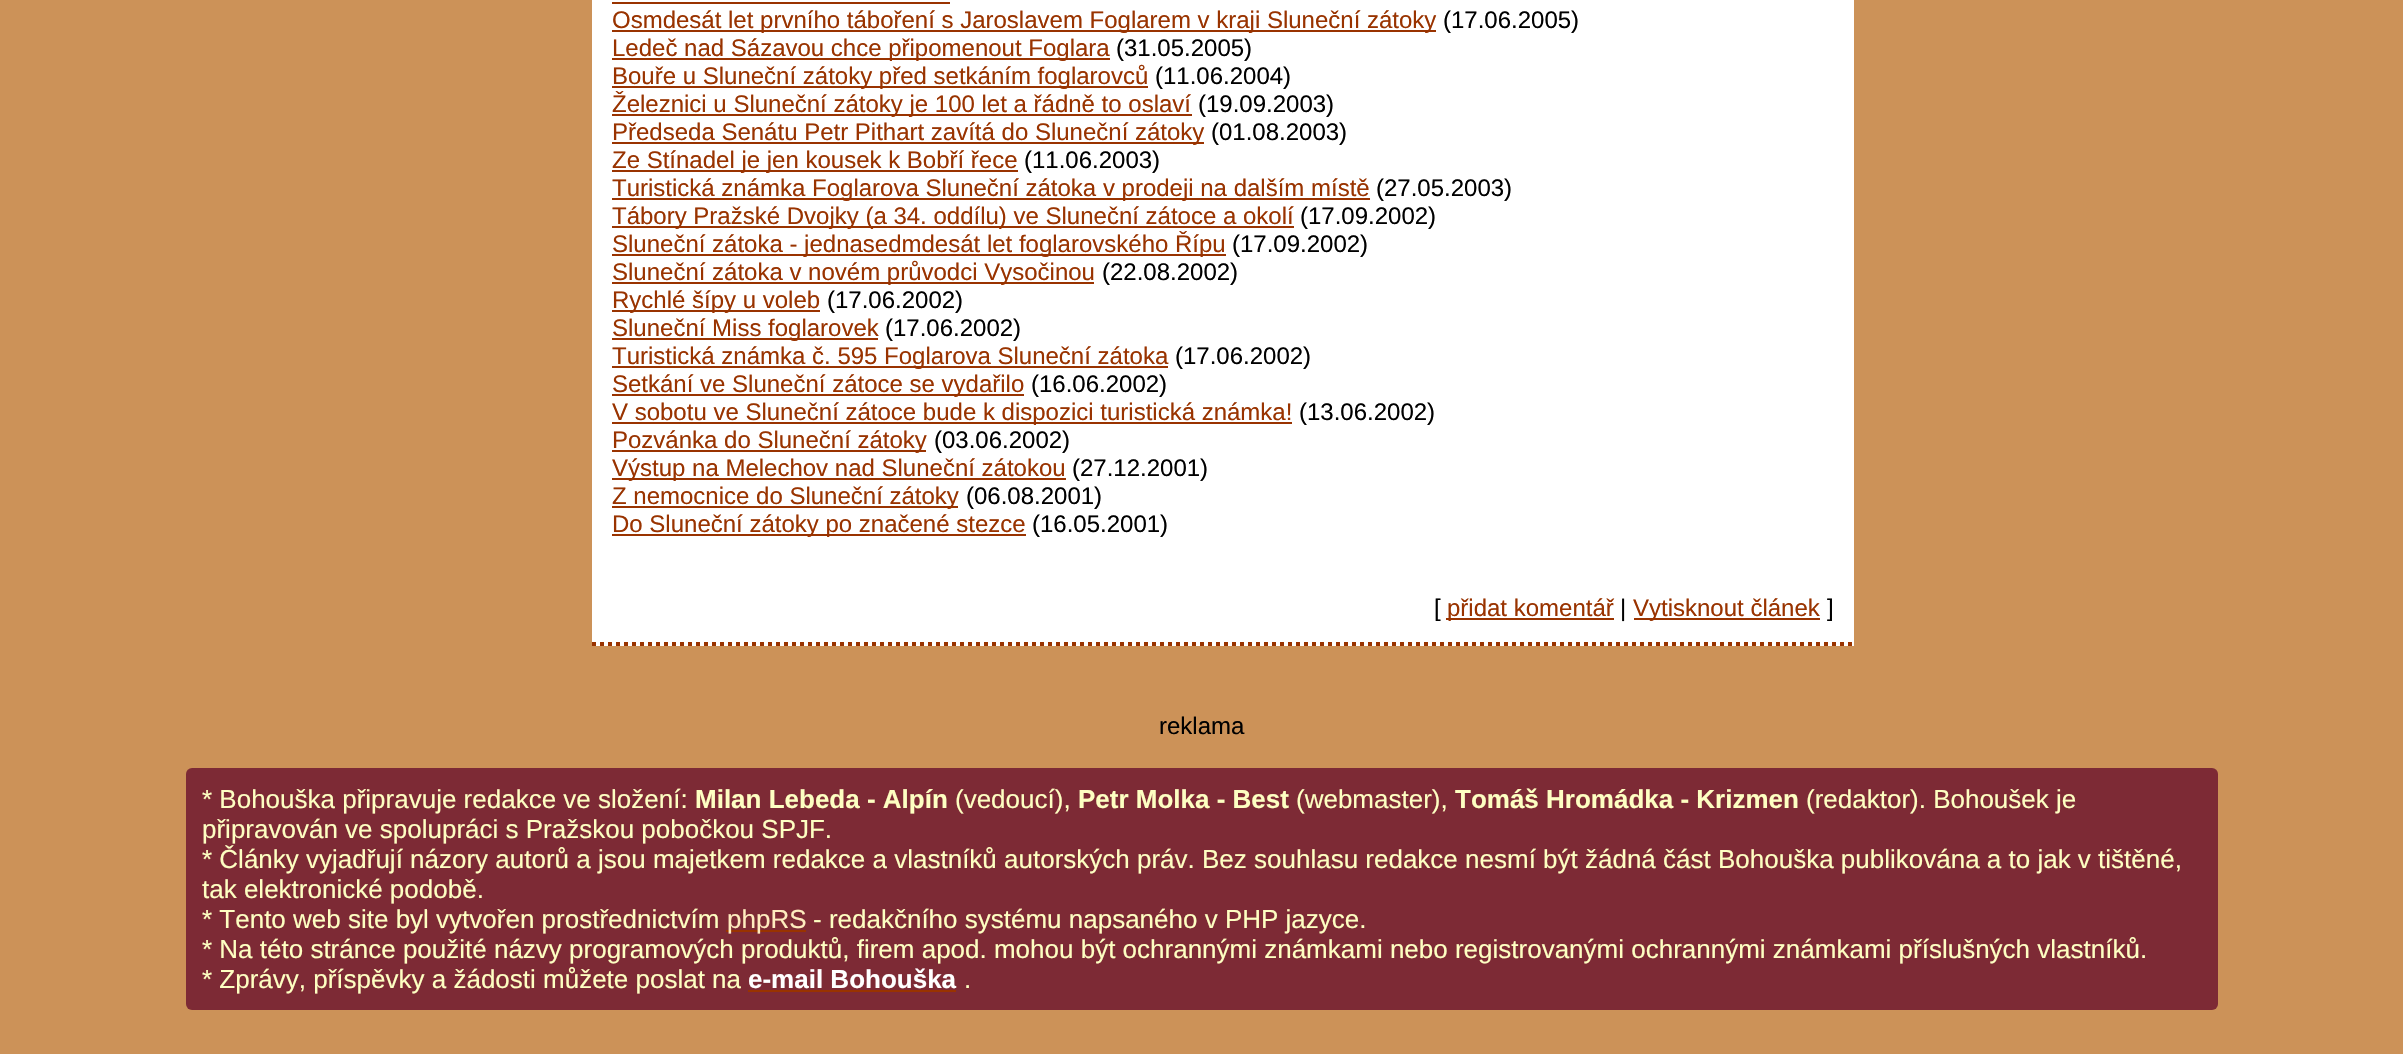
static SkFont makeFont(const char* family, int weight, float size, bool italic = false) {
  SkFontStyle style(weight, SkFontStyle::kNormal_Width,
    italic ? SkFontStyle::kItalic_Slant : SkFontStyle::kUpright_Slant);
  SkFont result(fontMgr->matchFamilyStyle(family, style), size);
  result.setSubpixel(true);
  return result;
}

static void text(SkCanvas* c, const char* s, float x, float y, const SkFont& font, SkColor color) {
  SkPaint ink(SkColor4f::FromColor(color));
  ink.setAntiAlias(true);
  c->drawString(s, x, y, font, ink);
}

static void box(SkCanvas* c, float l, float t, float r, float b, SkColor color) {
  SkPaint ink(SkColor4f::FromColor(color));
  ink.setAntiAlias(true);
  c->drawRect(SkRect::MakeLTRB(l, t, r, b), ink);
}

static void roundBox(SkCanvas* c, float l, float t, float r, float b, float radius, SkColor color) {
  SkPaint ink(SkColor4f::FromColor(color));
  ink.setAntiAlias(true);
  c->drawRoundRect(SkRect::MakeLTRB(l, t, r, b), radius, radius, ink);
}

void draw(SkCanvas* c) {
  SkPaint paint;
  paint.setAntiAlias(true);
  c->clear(0xffcc9258);
  box(c, 592, 0, 1854, 646, 0xffffffff);
  paint.setStyle(SkPaint::kStroke_Style);
  paint.setStrokeWidth(4);
  paint.setColor(0xff993300);
  paint.setPathEffect(SkDashPathEffect::Make({{4, 4}}, 0));
  c->drawPath(SkPathBuilder().moveTo(592, 644).lineTo(1854, 644).detach(), paint);
  paint.setPathEffect(nullptr);
  box(c, 612, 2, 950, 4, 0xff993300);
  box(c, 612, 30, 1436, 32, 0xff993300);
  SkFont face1 = makeFont("Liberation Sans", 400, 24);
  text(c, "Osmdesát let prvního táboření s Jaroslavem Foglarem v kraji Sluneční zátoky", 612, 28, face1, 0xff993300);
  text(c, "(17.06.2005)", 1443, 28, face1, 0xff000000);
  box(c, 612, 58, 1110, 60, 0xff993300);
  text(c, "Ledeč nad Sázavou chce připomenout Foglara", 612, 56, face1, 0xff993300);
  text(c, "(31.05.2005)", 1116, 56, face1, 0xff000000);
  box(c, 612, 86, 1148, 88, 0xff993300);
  text(c, "Bouře u Sluneční zátoky před setkáním foglarovců", 612, 84, face1, 0xff993300);
  text(c, "(11.06.2004)", 1155, 84, face1, 0xff000000);
  box(c, 612, 114, 1192, 116, 0xff993300);
  text(c, "Železnici u Sluneční zátoky je 100 let a řádně to oslaví", 612, 112, face1, 0xff993300);
  text(c, "(19.09.2003)", 1198, 112, face1, 0xff000000);
  box(c, 612, 142, 1204, 144, 0xff993300);
  text(c, "Předseda Senátu Petr Pithart zavítá do Sluneční zátoky", 612, 140, face1, 0xff993300);
  text(c, "(01.08.2003)", 1211, 140, face1, 0xff000000);
  box(c, 612, 170, 1018, 172, 0xff993300);
  text(c, "Ze Stínadel je jen kousek k Bobří řece", 612, 168, face1, 0xff993300);
  text(c, "(11.06.2003)", 1024, 168, face1, 0xff000000);
  box(c, 612, 198, 1370, 200, 0xff993300);
  text(c, "Turistická známka Foglarova Sluneční zátoka v prodeji na dalším místě", 612, 196, face1, 0xff993300);
  text(c, "(27.05.2003)", 1376, 196, face1, 0xff000000);
  box(c, 612, 226, 1294, 228, 0xff993300);
  text(c, "Tábory Pražské Dvojky (a 34. oddílu) ve Sluneční zátoce a okolí", 612, 224, face1, 0xff993300);
  text(c, "(17.09.2002)", 1300, 224, face1, 0xff000000);
  box(c, 612, 254, 1226, 256, 0xff993300);
  text(c, "Sluneční zátoka - jednasedmdesát let foglarovského Řípu", 612, 252, face1, 0xff993300);
  text(c, "(17.09.2002)", 1232, 252, face1, 0xff000000);
  box(c, 612, 282, 1094, 284, 0xff993300);
  text(c, "Sluneční zátoka v novém průvodci Vysočinou", 612, 280, face1, 0xff993300);
  text(c, "(22.08.2002)", 1102, 280, face1, 0xff000000);
  box(c, 612, 310, 820, 312, 0xff993300);
  text(c, "Rychlé šípy u voleb", 612, 308, face1, 0xff993300);
  text(c, "(17.06.2002)", 827, 308, face1, 0xff000000);
  box(c, 612, 338, 878, 340, 0xff993300);
  text(c, "Sluneční Miss foglarovek", 612, 336, face1, 0xff993300);
  text(c, "(17.06.2002)", 885, 336, face1, 0xff000000);
  box(c, 612, 366, 1168, 368, 0xff993300);
  text(c, "Turistická známka č. 595 Foglarova Sluneční zátoka", 612, 364, face1, 0xff993300);
  text(c, "(17.06.2002)", 1175, 364, face1, 0xff000000);
  box(c, 612, 394, 1024, 396, 0xff993300);
  text(c, "Setkání ve Sluneční zátoce se vydařilo", 612, 392, face1, 0xff993300);
  text(c, "(16.06.2002)", 1031, 392, face1, 0xff000000);
  box(c, 612, 422, 1292, 424, 0xff993300);
  text(c, "V sobotu ve Sluneční zátoce bude k dispozici turistická známka!", 612, 420, face1, 0xff993300);
  text(c, "(13.06.2002)", 1299, 420, face1, 0xff000000);
  box(c, 612, 450, 926, 452, 0xff993300);
  text(c, "Pozvánka do Sluneční zátoky", 612, 448, face1, 0xff993300);
  text(c, "(03.06.2002)", 934, 448, face1, 0xff000000);
  box(c, 612, 478, 1066, 480, 0xff993300);
  text(c, "Výstup na Melechov nad Sluneční zátokou", 612, 476, face1, 0xff993300);
  text(c, "(27.12.2001)", 1072, 476, face1, 0xff000000);
  box(c, 612, 506, 958, 508, 0xff993300);
  text(c, "Z nemocnice do Sluneční zátoky", 612, 504, face1, 0xff993300);
  text(c, "(06.08.2001)", 966, 504, face1, 0xff000000);
  box(c, 612, 534, 1026, 536, 0xff993300);
  text(c, "Do Sluneční zátoky po značené stezce", 612, 532, face1, 0xff993300);
  text(c, "(16.05.2001)", 1032, 532, face1, 0xff000000);
  text(c, "[", 1434, 616, face1, 0xff000000);
  box(c, 1446, 618, 1614, 620, 0xff993300);
  text(c, "přidat komentář", 1447, 616, face1, 0xff993300);
  text(c, "|", 1620, 616, face1, 0xff000000);
  box(c, 1634, 618, 1820, 620, 0xff993300);
  text(c, "Vytisknout článek", 1633, 616, face1, 0xff993300);
  text(c, "]", 1827, 616, face1, 0xff000000);
  text(c, "reklama", 1159, 734, face1, 0xff000000);
  roundBox(c, 186, 768, 2218, 1010, 6, 0xff7d2a35);
  SkFont face2 = makeFont("Liberation Sans", 400, 26);
  text(c, "* Bohouška připravuje redakce ve složení:", 202, 808, face2, 0xfffeffc2);
  SkFont face3 = makeFont("Liberation Sans", 700, 26);
  text(c, "Milan Lebeda - Alpín", 695, 808, face3, 0xfffeffc2);
  text(c, "(vedoucí),", 955, 808, face2, 0xfffeffc2);
  text(c, "Petr Molka - Best", 1078, 808, face3, 0xfffeffc2);
  text(c, "(webmaster),", 1296, 808, face2, 0xfffeffc2);
  text(c, "Tomáš Hromádka - Krizmen", 1455, 808, face3, 0xfffeffc2);
  text(c, "(redaktor). Bohoušek je", 1806, 808, face2, 0xfffeffc2);
  text(c, "připravován ve spolupráci s Pražskou pobočkou SPJF.", 202, 838, face2, 0xfffeffc2);
  text(c, "* Články vyjadřují názory autorů a jsou majetkem redakce a vlastníků autorských práv. Bez souhlasu redakce nesmí být žádná část Bohouška publikována a to jak v tištěné,", 202, 868, face2, 0xfffeffc2);
  text(c, "tak elektronické podobě.", 202, 898, face2, 0xfffeffc2);
  text(c, "* Tento web site byl vytvořen prostřednictvím", 202, 928, face2, 0xfffeffc2);
  box(c, 726, 930, 806, 932, 0xff993300);
  text(c, "phpRS", 727, 928, face2, 0xffffecbf);
  text(c, "- redakčního systému napsaného v PHP jazyce.", 813, 928, face2, 0xfffeffc2);
  text(c, "* Na této stránce použité názvy programových produktů, firem apod. mohou být ochrannými známkami nebo registrovanými ochrannými známkami příslušných vlastníků.", 202, 958, face2, 0xfffeffc2);
  text(c, "* Zprávy, příspěvky a žádosti můžete poslat na", 202, 988, face2, 0xfffeffc2);
  text(c, "e-mail Bohouška", 748, 988, face3, 0xffffffff);
  box(c, 748, 990, 956, 992, 0xff993300);
  text(c, ".", 964, 988, face2, 0xfffeffc2);
}
